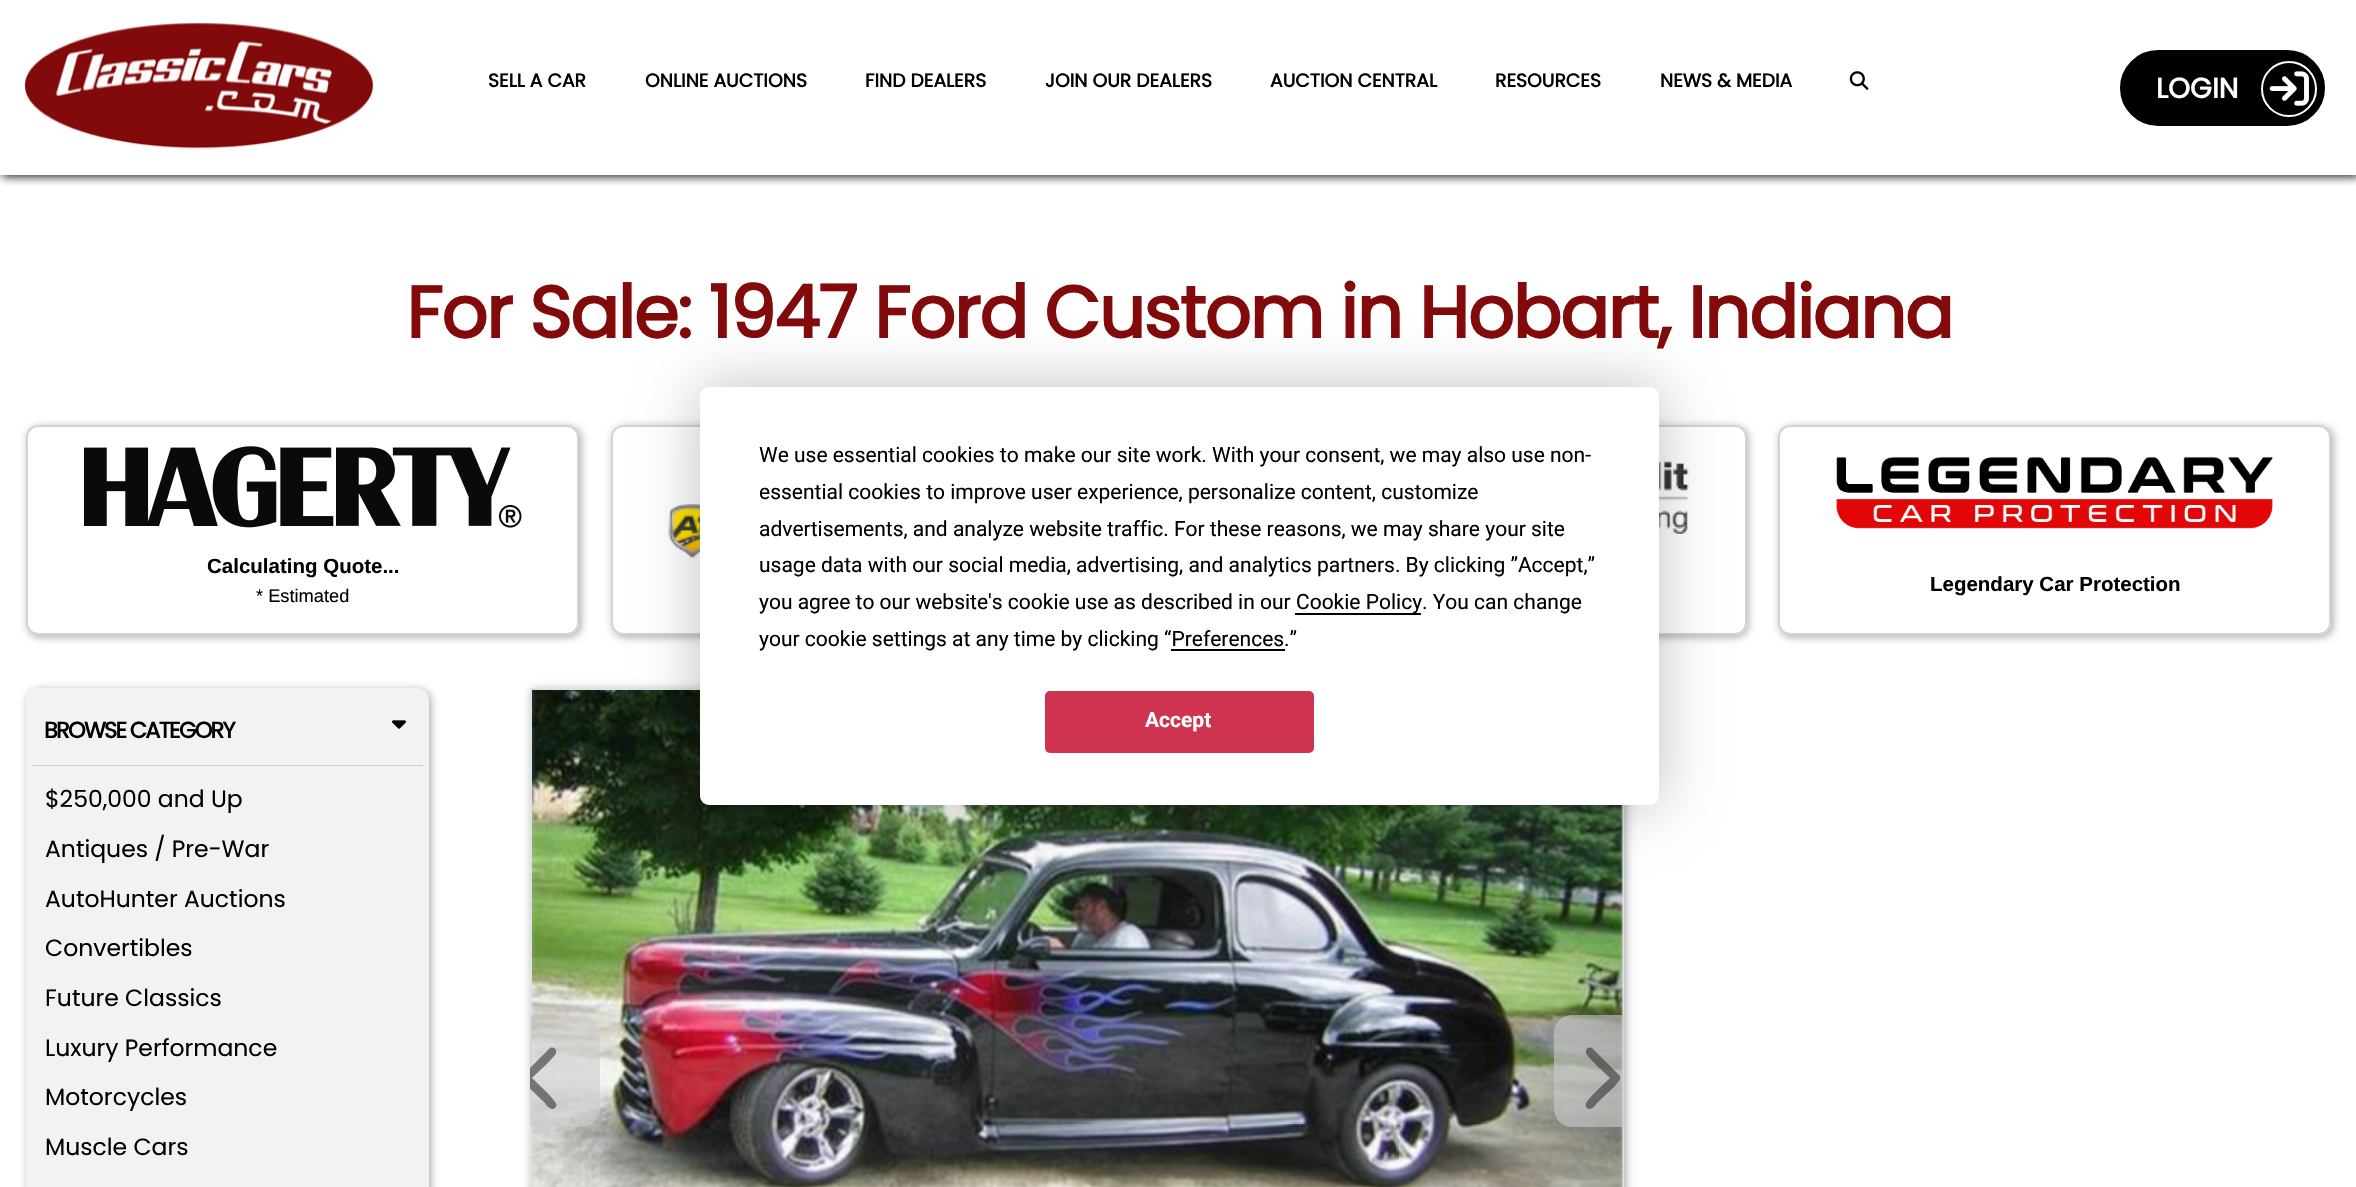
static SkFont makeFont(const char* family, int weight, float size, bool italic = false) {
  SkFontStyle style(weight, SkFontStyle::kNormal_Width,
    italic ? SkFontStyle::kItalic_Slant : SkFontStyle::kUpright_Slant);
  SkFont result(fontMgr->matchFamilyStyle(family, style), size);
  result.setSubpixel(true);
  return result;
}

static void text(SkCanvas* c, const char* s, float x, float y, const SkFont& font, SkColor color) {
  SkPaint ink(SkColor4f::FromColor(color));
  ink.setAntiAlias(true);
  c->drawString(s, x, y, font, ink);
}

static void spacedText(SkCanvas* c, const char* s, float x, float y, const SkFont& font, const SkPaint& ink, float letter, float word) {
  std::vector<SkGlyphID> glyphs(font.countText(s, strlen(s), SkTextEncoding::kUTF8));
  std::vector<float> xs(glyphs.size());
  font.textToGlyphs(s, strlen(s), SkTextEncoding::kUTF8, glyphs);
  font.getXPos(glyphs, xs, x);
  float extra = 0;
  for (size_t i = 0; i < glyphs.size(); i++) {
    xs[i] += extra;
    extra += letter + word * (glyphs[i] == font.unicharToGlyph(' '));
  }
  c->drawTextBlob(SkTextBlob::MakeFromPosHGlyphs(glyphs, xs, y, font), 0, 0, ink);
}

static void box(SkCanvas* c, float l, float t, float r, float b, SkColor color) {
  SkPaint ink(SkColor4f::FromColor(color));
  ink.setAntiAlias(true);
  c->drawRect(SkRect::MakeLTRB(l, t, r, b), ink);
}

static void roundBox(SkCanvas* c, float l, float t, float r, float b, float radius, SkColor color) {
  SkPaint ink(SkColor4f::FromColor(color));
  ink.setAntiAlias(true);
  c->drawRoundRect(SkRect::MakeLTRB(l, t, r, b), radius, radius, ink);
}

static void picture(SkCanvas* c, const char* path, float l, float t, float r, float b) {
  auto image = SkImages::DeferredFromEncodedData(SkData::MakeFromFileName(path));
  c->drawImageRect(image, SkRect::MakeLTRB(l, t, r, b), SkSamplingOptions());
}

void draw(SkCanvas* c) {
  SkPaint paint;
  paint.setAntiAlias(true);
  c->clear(0xffffffff);
  c->save();
  c->clipRect(SkRect::MakeLTRB(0, 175, 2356, 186));
  paint.setColor(0xff282828);
  paint.setMaskFilter(SkMaskFilter::MakeBlur(kNormal_SkBlurStyle, 4.5f));
  c->drawRect(SkRect::MakeLTRB(2, 2, 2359, 177), paint);
  paint.setMaskFilter(nullptr);
  c->restore();
  picture(c, "img_01.png", 24, 22, 374, 150);
  SkFont face1 = makeFont("Poppins", 700, 18.75f);
  text(c, "SELL A CAR", 488, 87, face1, 0xff000000);
  text(c, "ONLINE AUCTIONS", 645, 87, face1, 0xff000000);
  text(c, "FIND DEALERS", 865, 87, face1, 0xff000000);
  text(c, "JOIN OUR DEALERS", 1045, 87, face1, 0xff000000);
  text(c, "AUCTION CENTRAL", 1270, 87, face1, 0xff000000);
  text(c, "RESOURCES", 1495, 87, face1, 0xff000000);
  text(c, "NEWS & MEDIA", 1660, 87, face1, 0xff000000);
  picture(c, "img_02.png", 1849, 71, 1869, 90);
  paint.setColor(0xff000000);
  c->drawRoundRect(SkRect::MakeLTRB(2118, 48, 2327, 128), 40, 40, paint);
  paint.setStyle(SkPaint::kStroke_Style);
  paint.setStrokeWidth(4);
  paint.setColor(0xffffffff);
  c->drawRoundRect(SkRect::MakeLTRB(2118, 48, 2327, 128), 40, 40, paint);
  SkFont face2 = makeFont("Poppins", 700, 28);
  text(c, "LOGIN", 2156, 98, face2, 0xffffffff);
  paint.setStrokeWidth(2);
  c->drawCircle(2289, 89, 27, paint);
  picture(c, "img_03.png", 2269, 71, 2309, 106);
  SkFont face3 = makeFont("Poppins", 700, 72.8f);
  paint.setStyle(SkPaint::kFill_Style);
  paint.setColor(0xff830a0b);
  spacedText(c, "For Sale: 1947 Ford Custom in Hobart, Indiana", 406, 338, face3, paint, -1.75f, 0);
  c->save();
  c->clipPath(SkPathBuilder(SkPathFillType::kEvenOdd).moveTo(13, 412).lineTo(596, 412).lineTo(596, 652).lineTo(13, 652).close().moveTo(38, 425).lineTo(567, 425).cubicTo(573.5f, 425, 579, 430.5f, 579, 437).lineTo(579, 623).cubicTo(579, 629.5f, 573.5f, 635, 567, 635).lineTo(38, 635).cubicTo(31.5f, 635, 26, 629.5f, 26, 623).lineTo(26, 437).cubicTo(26, 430.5f, 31.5f, 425, 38, 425).close().detach(), true);
  paint.setColor(0xffa9a9a9);
  paint.setMaskFilter(SkMaskFilter::MakeBlur(kNormal_SkBlurStyle, 4.5f));
  c->drawRoundRect(SkRect::MakeLTRB(28, 427, 581, 637), 12, 12, paint);
  paint.setMaskFilter(nullptr);
  c->restore();
  paint.setStyle(SkPaint::kStroke_Style);
  paint.setColor(0xffd3d3d3);
  c->drawRoundRect(SkRect::MakeLTRB(27, 426, 578, 634), 11, 11, paint);
  picture(c, "img_04.png", 84, 446, 522, 528);
  SkFont face4 = makeFont("Liberation Sans", 700, 20.5f);
  text(c, "Calculating Quote...", 207, 573, face4, 0xff000000);
  SkFont face5 = makeFont("Liberation Sans", 400, 18.25f);
  text(c, "* Estimated", 256, 602, face5, 0xff000000);
  c->save();
  c->clipPath(SkPathBuilder(SkPathFillType::kEvenOdd).moveTo(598, 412).lineTo(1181, 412).lineTo(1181, 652).lineTo(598, 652).close().moveTo(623, 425).lineTo(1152, 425).cubicTo(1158.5f, 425, 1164, 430.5f, 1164, 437).lineTo(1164, 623).cubicTo(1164, 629.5f, 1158.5f, 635, 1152, 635).lineTo(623, 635).cubicTo(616.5f, 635, 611, 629.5f, 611, 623).lineTo(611, 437).cubicTo(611, 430.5f, 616.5f, 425, 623, 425).close().detach(), true);
  paint.setStyle(SkPaint::kFill_Style);
  paint.setColor(0xffa9a9a9);
  paint.setMaskFilter(SkMaskFilter::MakeBlur(kNormal_SkBlurStyle, 4.5f));
  c->drawRoundRect(SkRect::MakeLTRB(613, 427, 1166, 637), 12, 12, paint);
  paint.setMaskFilter(nullptr);
  c->restore();
  paint.setStyle(SkPaint::kStroke_Style);
  paint.setColor(0xffd3d3d3);
  c->drawRoundRect(SkRect::MakeLTRB(612, 426, 1163, 634), 11, 11, paint);
  picture(c, "img_05.png", 668, 504, 700, 559);
  c->save();
  c->clipPath(SkPathBuilder(SkPathFillType::kEvenOdd).moveTo(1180, 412).lineTo(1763, 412).lineTo(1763, 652).lineTo(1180, 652).close().moveTo(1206, 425).lineTo(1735, 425).cubicTo(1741.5f, 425, 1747, 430.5f, 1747, 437).lineTo(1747, 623).cubicTo(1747, 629.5f, 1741.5f, 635, 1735, 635).lineTo(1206, 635).cubicTo(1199.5f, 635, 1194, 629.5f, 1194, 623).lineTo(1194, 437).cubicTo(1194, 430.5f, 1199.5f, 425, 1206, 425).close().detach(), true);
  paint.setStyle(SkPaint::kFill_Style);
  paint.setColor(0xffa9a9a9);
  paint.setMaskFilter(SkMaskFilter::MakeBlur(kNormal_SkBlurStyle, 4.5f));
  c->drawRoundRect(SkRect::MakeLTRB(1195, 427, 1748, 637), 12, 12, paint);
  paint.setMaskFilter(nullptr);
  c->restore();
  paint.setStyle(SkPaint::kStroke_Style);
  paint.setColor(0xffd3d3d3);
  c->drawRoundRect(SkRect::MakeLTRB(1195, 426, 1746, 634), 11, 11, paint);
  picture(c, "img_06.png", 1659, 455, 1689, 534);
  c->save();
  c->clipPath(SkPathBuilder(SkPathFillType::kEvenOdd).moveTo(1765, 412).lineTo(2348, 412).lineTo(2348, 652).lineTo(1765, 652).close().moveTo(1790, 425).lineTo(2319, 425).cubicTo(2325.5f, 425, 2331, 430.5f, 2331, 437).lineTo(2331, 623).cubicTo(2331, 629.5f, 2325.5f, 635, 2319, 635).lineTo(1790, 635).cubicTo(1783.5f, 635, 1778, 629.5f, 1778, 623).lineTo(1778, 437).cubicTo(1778, 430.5f, 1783.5f, 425, 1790, 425).close().detach(), true);
  paint.setStyle(SkPaint::kFill_Style);
  paint.setColor(0xffa9a9a9);
  paint.setMaskFilter(SkMaskFilter::MakeBlur(kNormal_SkBlurStyle, 4.5f));
  c->drawRoundRect(SkRect::MakeLTRB(1780, 427, 2333, 637), 12, 12, paint);
  paint.setMaskFilter(nullptr);
  c->restore();
  paint.setStyle(SkPaint::kStroke_Style);
  paint.setColor(0xffd3d3d3);
  c->drawRoundRect(SkRect::MakeLTRB(1779, 426, 2330, 634), 11, 11, paint);
  picture(c, "img_07.png", 1836, 456, 2273, 529);
  text(c, "Legendary Car Protection", 1930, 591, face4, 0xff000000);
  paint.setStyle(SkPaint::kFill_Style);
  paint.setColor(0xffa9a9a9);
  paint.setMaskFilter(SkMaskFilter::MakeBlur(kNormal_SkBlurStyle, 4.5f));
  c->drawRoundRect(SkRect::MakeLTRB(28, 690, 431, 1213), 12, 12, paint);
  paint.setMaskFilter(nullptr);
  roundBox(c, 26, 688, 429, 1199, 12, 0xfff2f2f2);
  paint.setColor(0xffcccccc);
  c->drawPath(SkPathBuilder().moveTo(424, 766).lineTo(32, 766).lineTo(33, 765).lineTo(422, 765).close().detach(), paint);
  SkFont face6 = makeFont("Poppins", 700, 22.5f);
  paint.setColor(0xff000000);
  spacedText(c, "BROWSE CATEGORY", 44, 738, face6, paint, -1.75f, 0);
  picture(c, "img_08.png", 392, 720, 406, 729);
  SkFont face7 = makeFont("Poppins", 400, 23.5f);
  text(c, "$250,000 and Up", 45, 807, face7, 0xff000000);
  text(c, "Antiques / Pre-War", 45, 857, face7, 0xff000000);
  text(c, "AutoHunter Auctions", 45, 907, face7, 0xff000000);
  text(c, "Convertibles", 45, 956, face7, 0xff000000);
  text(c, "Future Classics", 45, 1006, face7, 0xff000000);
  text(c, "Luxury Performance", 45, 1056, face7, 0xff000000);
  text(c, "Motorcycles", 45, 1105, face7, 0xff000000);
  text(c, "Muscle Cars", 45, 1155, face7, 0xff000000);
  paint.setColor(0xffa9a9a9);
  paint.setMaskFilter(SkMaskFilter::MakeBlur(kNormal_SkBlurStyle, 4.5f));
  c->drawRect(SkRect::MakeLTRB(532, 690, 1626, 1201), paint);
  paint.setMaskFilter(nullptr);
  paint.setStyle(SkPaint::kStroke_Style);
  paint.setColor(0xffdee2e6);
  c->drawRect(SkRect::MakeLTRB(531, 689, 1623, 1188), paint);
  picture(c, "img_09.png", 532, 690, 1623, 1187);
  paint.setStyle(SkPaint::kFill_Style);
  paint.setColor(0x99cccccc);
  c->drawPath(SkPathBuilder().moveTo(530, 1015).lineTo(582, 1015).cubicTo(592, 1015, 600, 1023, 600, 1033).lineTo(600, 1109).cubicTo(600, 1119, 592, 1127, 582, 1127).lineTo(530, 1127).close().detach(), paint);
  c->save();
  c->clipRect(SkRect::MakeLTRB(530, 688, 1624, 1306));
  paint.setColor(0x99333333);
  c->drawPath(SkPathBuilder().moveTo(523, 1075).cubicTo(519, 1079, 525, 1083, 527, 1086).lineTo(545, 1103).cubicTo(547, 1106, 551, 1111, 555, 1108).cubicTo(556, 1107, 557, 1105, 556, 1104).cubicTo(556, 1100, 536, 1082, 532, 1078).cubicTo(536, 1074, 556, 1056, 556, 1053).cubicTo(557, 1048, 552, 1046, 549, 1049).close().detach(), paint);
  c->restore();
  paint.setColor(0x99cccccc);
  c->drawPath(SkPathBuilder().moveTo(1572, 1015).lineTo(1624, 1015).lineTo(1624, 1127).lineTo(1572, 1127).cubicTo(1562, 1127, 1554, 1119, 1554, 1109).lineTo(1554, 1033).cubicTo(1554, 1023, 1562, 1015, 1572, 1015).close().detach(), paint);
  paint.setColor(0x99333333);
  c->drawPath(SkPathBuilder().moveTo(1619, 1075).cubicTo(1623, 1079, 1617, 1083, 1615, 1086).lineTo(1597, 1103).cubicTo(1595, 1106, 1591, 1111, 1587, 1108).cubicTo(1586, 1107, 1585, 1105, 1586, 1104).cubicTo(1586, 1100, 1606, 1082, 1610, 1078).cubicTo(1606, 1074, 1586, 1056, 1586, 1053).cubicTo(1585, 1048, 1590, 1046, 1593, 1049).close().detach(), paint);
  paint.setColor(0x40000000);
  paint.setMaskFilter(SkMaskFilter::MakeBlur(kNormal_SkBlurStyle, 30.5f));
  c->drawRoundRect(SkRect::MakeLTRB(700, 387, 1659, 805), 9, 9, paint);
  paint.setMaskFilter(nullptr);
  roundBox(c, 700, 387, 1659, 805, 9, 0xffffffff);
  SkFont face8 = makeFont("Roboto", 400, 21);
  text(c, "We use essential cookies to make our site work. With your consent, we may also use non-", 759, 462, face8, 0xff000000);
  text(c, "essential cookies to improve user experience, personalize content, customize", 759, 499, face8, 0xff000000);
  text(c, "advertisements, and analyze website traffic. For these reasons, we may share your site", 759, 536, face8, 0xff000000);
  text(c, "usage data with our social media, advertising, and analytics partners. By clicking ”Accept,”", 759, 572, face8, 0xff000000);
  text(c, "you agree to our website's cookie use as described in our", 759, 609, face8, 0xff000000);
  box(c, 1295, 613, 1421, 615, 0xff000000);
  text(c, "Cookie Policy", 1296, 609, face8, 0xff000000);
  text(c, ". You can change", 1422, 609, face8, 0xff000000);
  text(c, "your cookie settings at any time by clicking “Preferences", 759, 646, face8, 0xff000000);
  text(c, ".”", 1284, 646, face8, 0xff000000);
  box(c, 1171, 649, 1285, 651, 0xff000000);
  paint.setColor(0xffce334f);
  c->drawRoundRect(SkRect::MakeLTRB(1046, 692, 1313, 752), 4, 4, paint);
  paint.setStyle(SkPaint::kStroke_Style);
  c->drawRoundRect(SkRect::MakeLTRB(1046, 692, 1313, 752), 4, 4, paint);
  SkFont face9 = makeFont("Roboto", 700, 21);
  text(c, "Accept", 1145, 727, face9, 0xffffffff);
}
